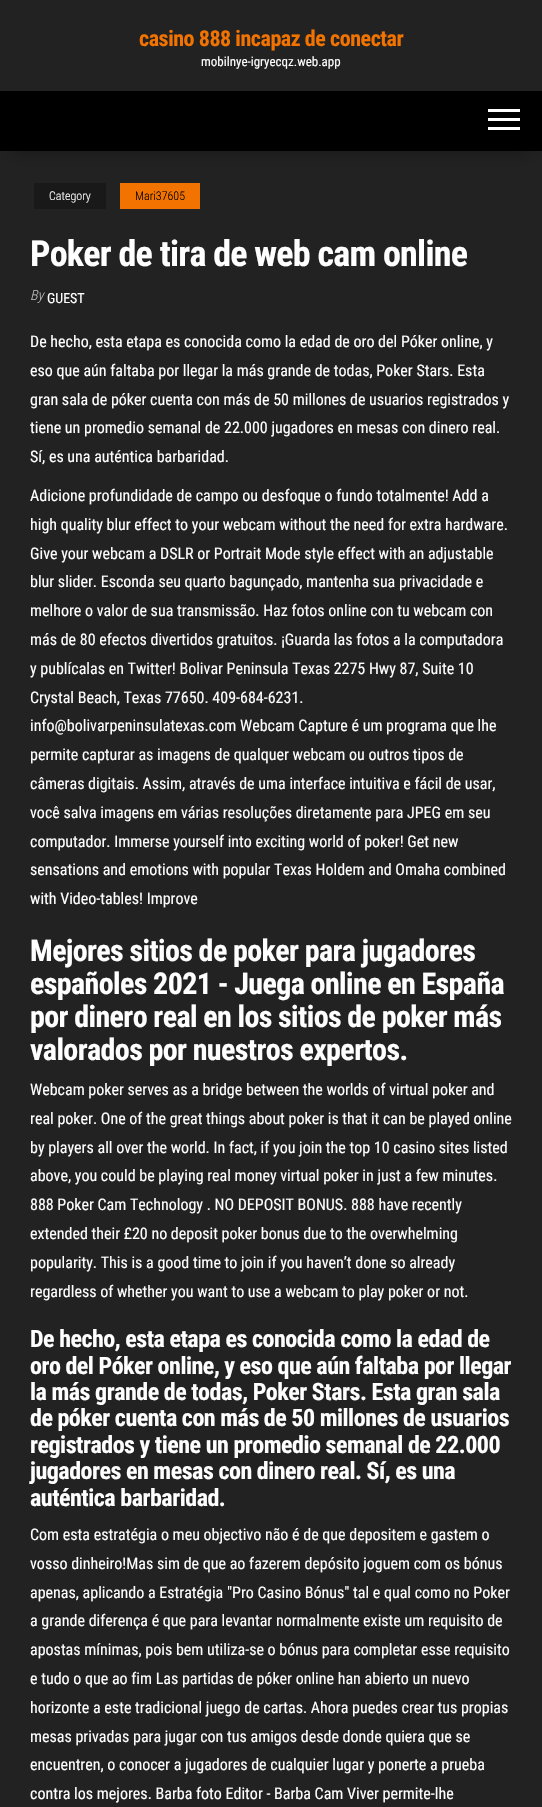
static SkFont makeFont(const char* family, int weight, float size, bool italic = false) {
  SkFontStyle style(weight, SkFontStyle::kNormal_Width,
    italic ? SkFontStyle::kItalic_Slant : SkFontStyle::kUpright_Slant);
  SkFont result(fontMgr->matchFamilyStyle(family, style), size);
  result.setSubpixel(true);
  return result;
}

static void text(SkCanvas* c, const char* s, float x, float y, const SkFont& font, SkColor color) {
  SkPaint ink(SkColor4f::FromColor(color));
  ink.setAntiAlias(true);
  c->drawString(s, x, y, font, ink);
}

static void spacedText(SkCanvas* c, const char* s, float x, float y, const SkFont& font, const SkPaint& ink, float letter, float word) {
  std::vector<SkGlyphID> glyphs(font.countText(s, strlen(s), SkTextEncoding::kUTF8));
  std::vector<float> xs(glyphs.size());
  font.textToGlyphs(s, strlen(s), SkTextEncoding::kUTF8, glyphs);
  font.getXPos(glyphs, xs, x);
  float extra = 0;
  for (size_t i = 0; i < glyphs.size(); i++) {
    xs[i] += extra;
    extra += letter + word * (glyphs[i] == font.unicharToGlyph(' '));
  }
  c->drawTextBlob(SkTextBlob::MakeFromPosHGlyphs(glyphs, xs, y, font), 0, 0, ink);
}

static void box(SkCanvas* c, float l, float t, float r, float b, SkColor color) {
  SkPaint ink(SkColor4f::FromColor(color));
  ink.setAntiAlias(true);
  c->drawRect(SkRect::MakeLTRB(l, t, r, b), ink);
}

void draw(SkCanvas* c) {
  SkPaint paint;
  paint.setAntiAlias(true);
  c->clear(0xff222222);
  SkFont face1 = makeFont("Roboto Condensed", 700, 22);
  paint.setColor(0xfff27300);
  spacedText(c, "casino 888 incapaz de conectar", 139, 46, face1, paint, -0.45f, 0);
  SkFont face2 = makeFont("Roboto Condensed", 400, 13);
  text(c, "mobilnye-igryecqz.web.app", 201, 66, face2, 0xffffffff);
  paint.setColor(0x6b000000);
  paint.setMaskFilter(SkMaskFilter::MakeBlur(kNormal_SkBlurStyle, 10));
  c->drawRect(SkRect::MakeLTRB(12, 113, 530, 149), paint);
  paint.setMaskFilter(nullptr);
  box(c, 0, 91, 542, 151, 0xff000000);
  box(c, 488, 109, 520, 112, 0xffffffff);
  box(c, 488, 118, 520, 121, 0xffffffff);
  box(c, 488, 127, 520, 130, 0xffffffff);
  box(c, 34, 183, 106, 209, 0xff191919);
  SkFont face3 = makeFont("Roboto Condensed", 300, 12);
  text(c, "Category", 49, 200, face3, 0xffffffff);
  box(c, 120, 183, 200, 209, 0xfff27300);
  text(c, "Mari37605", 135, 200, face3, 0xff000000);
  SkFont face4 = makeFont("Roboto Condensed", 700, 36);
  paint.setColor(0xffffffff);
  spacedText(c, "Poker de tira de web cam online", 30, 266, face4, paint, -0.75f, 0);
  SkFont face5 = makeFont("Roboto Condensed", 300, 14, true);
  text(c, "By", 30, 300, face5, 0xffbdbdbd);
  SkFont face6 = makeFont("Roboto Condensed", 400, 14);
  text(c, "GUEST", 47, 303, face6, 0xffffffff);
  SkFont face7 = makeFont("Roboto Condensed", 400, 16);
  text(c, "De hecho, esta etapa es conocida como la edad de oro del Póker online, y", 30, 347, face7, 0xffffffff);
  text(c, "eso que aún faltaba por llegar la más grande de todas, Poker Stars. Esta", 30, 376, face7, 0xffffffff);
  text(c, "gran sala de póker cuenta con más de 50 millones de usuarios registrados y", 30, 405, face7, 0xffffffff);
  text(c, "tiene un promedio semanal de 22.000 jugadores en mesas con dinero real.", 30, 433, face7, 0xffffffff);
  text(c, "Sí, es una auténtica barbaridad.", 30, 462, face7, 0xffffffff);
  text(c, "Adicione profundidade de campo ou desfoque o fundo totalmente! Add a", 30, 501, face7, 0xffffffff);
  text(c, "high quality blur effect to your webcam without the need for extra hardware.", 30, 530, face7, 0xffffffff);
  text(c, "Give your webcam a DSLR or Portrait Mode style effect with an adjustable", 30, 559, face7, 0xffffffff);
  text(c, "blur slider. Esconda seu quarto bagunçado, mantenha sua privacidade e", 30, 587, face7, 0xffffffff);
  text(c, "melhore o valor de sua transmissão. Haz fotos online con tu webcam con", 30, 616, face7, 0xffffffff);
  text(c, "más de 80 efectos divertidos gratuitos. ¡Guarda las fotos a la computadora", 30, 645, face7, 0xffffffff);
  text(c, "y publícalas en Twitter! Bolivar Peninsula Texas 2275 Hwy 87, Suite 10", 30, 674, face7, 0xffffffff);
  text(c, "Crystal Beach, Texas 77650. 409-684-6231.", 30, 703, face7, 0xffffffff);
  text(c, "info@bolivarpeninsulatexas.com Webcam Capture é um programa que lhe", 30, 731, face7, 0xffffffff);
  text(c, "permite capturar as imagens de qualquer webcam ou outros tipos de", 30, 760, face7, 0xffffffff);
  text(c, "câmeras digitais. Assim, através de uma interface intuitiva e fácil de usar,", 30, 789, face7, 0xffffffff);
  text(c, "você salva imagens em várias resoluções diretamente para JPEG em seu", 30, 818, face7, 0xffffffff);
  text(c, "computador. Immerse yourself into exciting world of poker! Get new", 30, 847, face7, 0xffffffff);
  text(c, "sensations and emotions with popular Texas Holdem and Omaha combined", 30, 875, face7, 0xffffffff);
  text(c, "with Video-tables! Improve", 30, 904, face7, 0xffffffff);
  SkFont face8 = makeFont("Roboto Condensed", 700, 30);
  spacedText(c, "Mejores sitios de poker para jugadores", 30, 961, face8, paint, -0.6f, 0);
  spacedText(c, "españoles 2021 - Juega online en España", 30, 994, face8, paint, -0.6f, 0);
  spacedText(c, "por dinero real en los sitios de poker más", 30, 1027, face8, paint, -0.6f, 0);
  spacedText(c, "valorados por nuestros expertos.", 30, 1060, face8, paint, -0.6f, 0);
  text(c, "Webcam poker serves as a bridge between the worlds of virtual poker and", 30, 1095, face7, 0xffffffff);
  text(c, "real poker. One of the great things about poker is that it can be played online", 30, 1124, face7, 0xffffffff);
  text(c, "by players all over the world. In fact, if you join the top 10 casino sites listed", 30, 1153, face7, 0xffffffff);
  text(c, "above, you could be playing real money virtual poker in just a few minutes.", 30, 1181, face7, 0xffffffff);
  text(c, "888 Poker Cam Technology . NO DEPOSIT BONUS. 888 have recently", 30, 1210, face7, 0xffffffff);
  text(c, "extended their £20 no deposit poker bonus due to the overwhelming", 30, 1239, face7, 0xffffffff);
  text(c, "popularity. This is a good time to join if you haven’t done so already", 30, 1268, face7, 0xffffffff);
  text(c, "regardless of whether you want to use a webcam to play poker or not.", 30, 1297, face7, 0xffffffff);
  SkFont face9 = makeFont("Roboto Condensed", 700, 24);
  spacedText(c, "De hecho, esta etapa es conocida como la edad de", 30, 1347, face9, paint, -0.48f, 0);
  spacedText(c, "oro del Póker online, y eso que aún faltaba por llegar", 30, 1374, face9, paint, -0.48f, 0);
  spacedText(c, "la más grande de todas, Poker Stars. Esta gran sala", 30, 1400, face9, paint, -0.48f, 0);
  spacedText(c, "de póker cuenta con más de 50 millones de usuarios", 30, 1426, face9, paint, -0.48f, 0);
  spacedText(c, "registrados y tiene un promedio semanal de 22.000", 30, 1453, face9, paint, -0.48f, 0);
  spacedText(c, "jugadores en mesas con dinero real. Sí, es una", 30, 1479, face9, paint, -0.48f, 0);
  spacedText(c, "auténtica barbaridad.", 30, 1506, face9, paint, -0.48f, 0);
  text(c, "Com esta estratégia o meu objectivo não é de que depositem e gastem o", 30, 1540, face7, 0xffffffff);
  text(c, "vosso dinheiro!Mas sim de que ao fazerem depósito joguem com os bónus", 30, 1569, face7, 0xffffffff);
  text(c, "apenas, aplicando a Estratégia \"Pro Casino Bónus\" tal e qual como no Poker", 30, 1598, face7, 0xffffffff);
  text(c, "a grande diferença é que para levantar normalmente existe um requisito de", 30, 1626, face7, 0xffffffff);
  text(c, "apostas mínimas, pois bem utiliza-se o bónus para completar esse requisito", 30, 1655, face7, 0xffffffff);
  text(c, "e tudo o que ao fim Las partidas de póker online han abierto un nuevo", 30, 1684, face7, 0xffffffff);
  text(c, "horizonte a este tradicional juego de cartas. Ahora puedes crear tus propias", 30, 1713, face7, 0xffffffff);
  text(c, "mesas privadas para jugar con tus amigos desde donde quiera que se", 30, 1742, face7, 0xffffffff);
  text(c, "encuentren, o conocer a jugadores de cualquier lugar y ponerte a prueba", 30, 1770, face7, 0xffffffff);
  text(c, "contra los mejores. Barba foto Editor - Barba Cam Viver permite-lhe", 30, 1799, face7, 0xffffffff);
}
